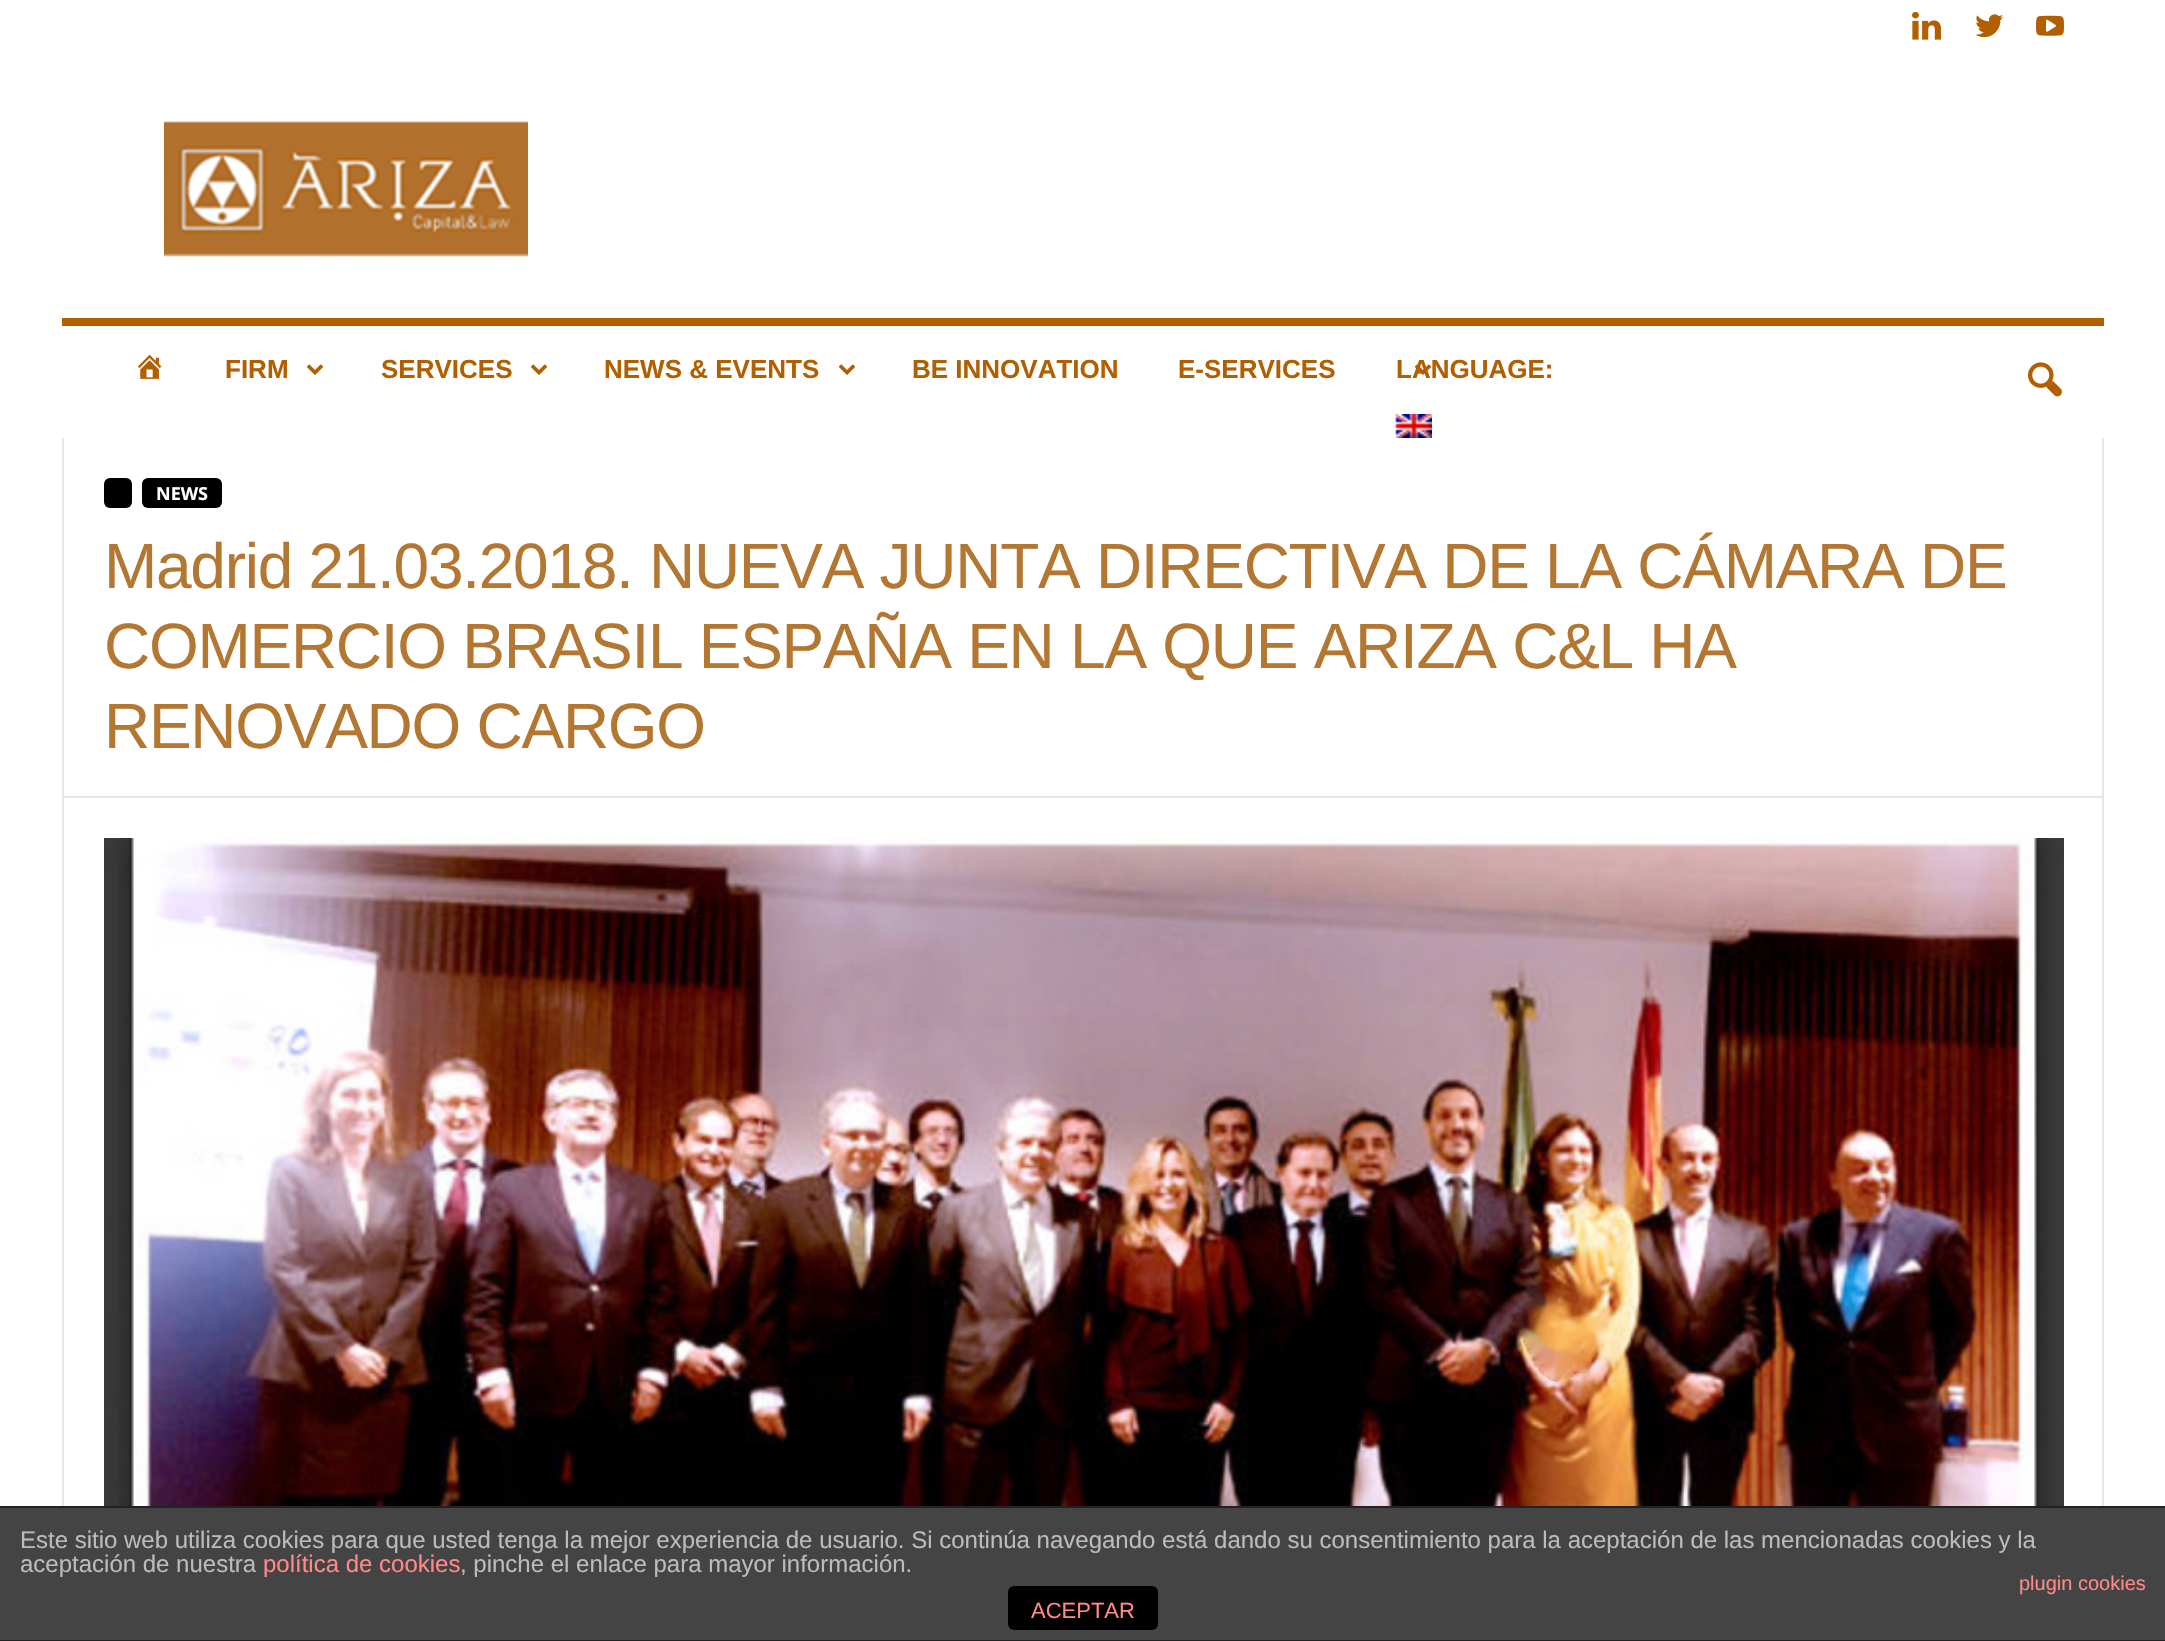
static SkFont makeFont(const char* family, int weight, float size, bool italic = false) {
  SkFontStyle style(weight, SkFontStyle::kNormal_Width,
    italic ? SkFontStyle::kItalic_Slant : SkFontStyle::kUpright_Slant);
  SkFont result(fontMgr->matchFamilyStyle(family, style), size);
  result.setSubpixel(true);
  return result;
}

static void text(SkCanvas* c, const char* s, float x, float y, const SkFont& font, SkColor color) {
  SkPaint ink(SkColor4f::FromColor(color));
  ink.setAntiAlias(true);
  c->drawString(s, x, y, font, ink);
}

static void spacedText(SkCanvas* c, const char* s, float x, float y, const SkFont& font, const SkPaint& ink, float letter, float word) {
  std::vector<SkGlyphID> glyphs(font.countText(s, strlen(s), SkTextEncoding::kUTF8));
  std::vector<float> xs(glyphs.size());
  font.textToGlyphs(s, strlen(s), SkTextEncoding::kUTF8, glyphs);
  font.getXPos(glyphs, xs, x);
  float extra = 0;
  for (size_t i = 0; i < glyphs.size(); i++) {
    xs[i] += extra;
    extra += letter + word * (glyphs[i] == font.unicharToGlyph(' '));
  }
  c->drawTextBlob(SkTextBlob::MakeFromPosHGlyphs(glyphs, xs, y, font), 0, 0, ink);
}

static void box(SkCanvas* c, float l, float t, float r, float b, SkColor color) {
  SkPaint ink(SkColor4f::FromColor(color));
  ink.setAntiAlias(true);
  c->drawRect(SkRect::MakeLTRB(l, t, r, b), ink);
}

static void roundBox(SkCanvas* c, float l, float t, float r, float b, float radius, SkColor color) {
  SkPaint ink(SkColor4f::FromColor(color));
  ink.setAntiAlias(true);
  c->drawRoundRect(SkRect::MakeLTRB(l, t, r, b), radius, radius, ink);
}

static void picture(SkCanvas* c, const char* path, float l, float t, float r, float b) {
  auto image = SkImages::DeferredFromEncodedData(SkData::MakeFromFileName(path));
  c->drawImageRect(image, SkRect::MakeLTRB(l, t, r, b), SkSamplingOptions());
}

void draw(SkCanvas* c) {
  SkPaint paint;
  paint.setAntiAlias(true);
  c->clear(0xffffffff);
  picture(c, "img_01.png", 1912, 11, 1941, 40);
  picture(c, "img_02.png", 1975, 14, 2003, 38);
  picture(c, "img_03.png", 2036, 15, 2064, 36);
  picture(c, "img_04.png", 164, 121, 528, 257);
  box(c, 62, 318, 2104, 326, 0xffb25f00);
  picture(c, "img_05.png", 137, 354, 162, 379);
  SkFont face1 = makeFont("Liberation Sans", 700, 26);
  text(c, "FIRM", 225, 378, face1, 0xffb25f00);
  picture(c, "img_06.png", 306, 364, 324, 375);
  text(c, "SERVICES", 381, 378, face1, 0xffb25f00);
  picture(c, "img_06.png", 530, 364, 548, 375);
  text(c, "NEWS & EVENTS", 604, 378, face1, 0xffb25f00);
  picture(c, "img_06.png", 838, 364, 856, 375);
  text(c, "BE INNOVATION", 912, 378, face1, 0xffb25f00);
  text(c, "E-SERVICES", 1178, 378, face1, 0xffb25f00);
  text(c, "LANGUAGE:", 1396, 378, face1, 0xffb25f00);
  picture(c, "img_07.png", 1414, 364, 1432, 375);
  picture(c, "img_08.png", 1395, 414, 1432, 438);
  picture(c, "img_09.png", 2028, 362, 2062, 397);
  box(c, 62, 438, 64, 1506, 0xffe6e6e6);
  roundBox(c, 104, 478, 132, 508, 6, 0xff000000);
  roundBox(c, 142, 478, 222, 508, 6, 0xff000000);
  SkFont face2 = makeFont("Open Sans", 700, 18);
  text(c, "NEWS", 156, 500, face2, 0xffffffff);
  SkFont face3 = makeFont("Liberation Sans", 400, 64);
  paint.setColor(0xffb37731);
  spacedText(c, "Madrid 21.03.2018. NUEVA JUNTA DIRECTIVA DE LA CÁMARA DE", 104, 588, face3, paint, -1.28f, 0);
  spacedText(c, "COMERCIO BRASIL ESPAÑA EN LA QUE ARIZA C&L HA", 104, 668, face3, paint, -1.28f, 0);
  spacedText(c, "RENOVADO CARGO", 104, 748, face3, paint, -1.28f, 0);
  box(c, 64, 796, 2102, 798, 0xffe6e6e6);
  picture(c, "img_10.png", 104, 838, 2064, 1506);
  box(c, 2102, 438, 2104, 1506, 0xffe6e6e6);
  box(c, 0, 1508, 2165, 1640, 0xff444444);
  box(c, 0, 1506, 2165, 1508, 0xff222222);
  box(c, 0, 1640, 2165, 1641, 0xff222222);
  SkFont face4 = makeFont("Liberation Sans", 400, 24);
  text(c, "Este sitio web utiliza cookies para que usted tenga la mejor experiencia de usuario. Si continúa navegando está dando su consentimiento para la aceptación de las mencionadas cookies y la", 20, 1548, face4, 0xffbbbbbb);
  text(c, "aceptación de nuestra", 20, 1572, face4, 0xffbbbbbb);
  text(c, "política de cookies", 263, 1572, face4, 0xffff8888);
  text(c, ", pinche el enlace para mayor información.", 460, 1572, face4, 0xffbbbbbb);
  SkFont face5 = makeFont("Liberation Sans", 400, 20);
  text(c, "plugin cookies", 2019, 1590, face5, 0xffff8888);
  roundBox(c, 1008, 1586, 1158, 1630, 6, 0xff000000);
  SkFont face6 = makeFont("Liberation Sans", 400, 22);
  text(c, "ACEPTAR", 1031, 1618, face6, 0xffff8888);
}
